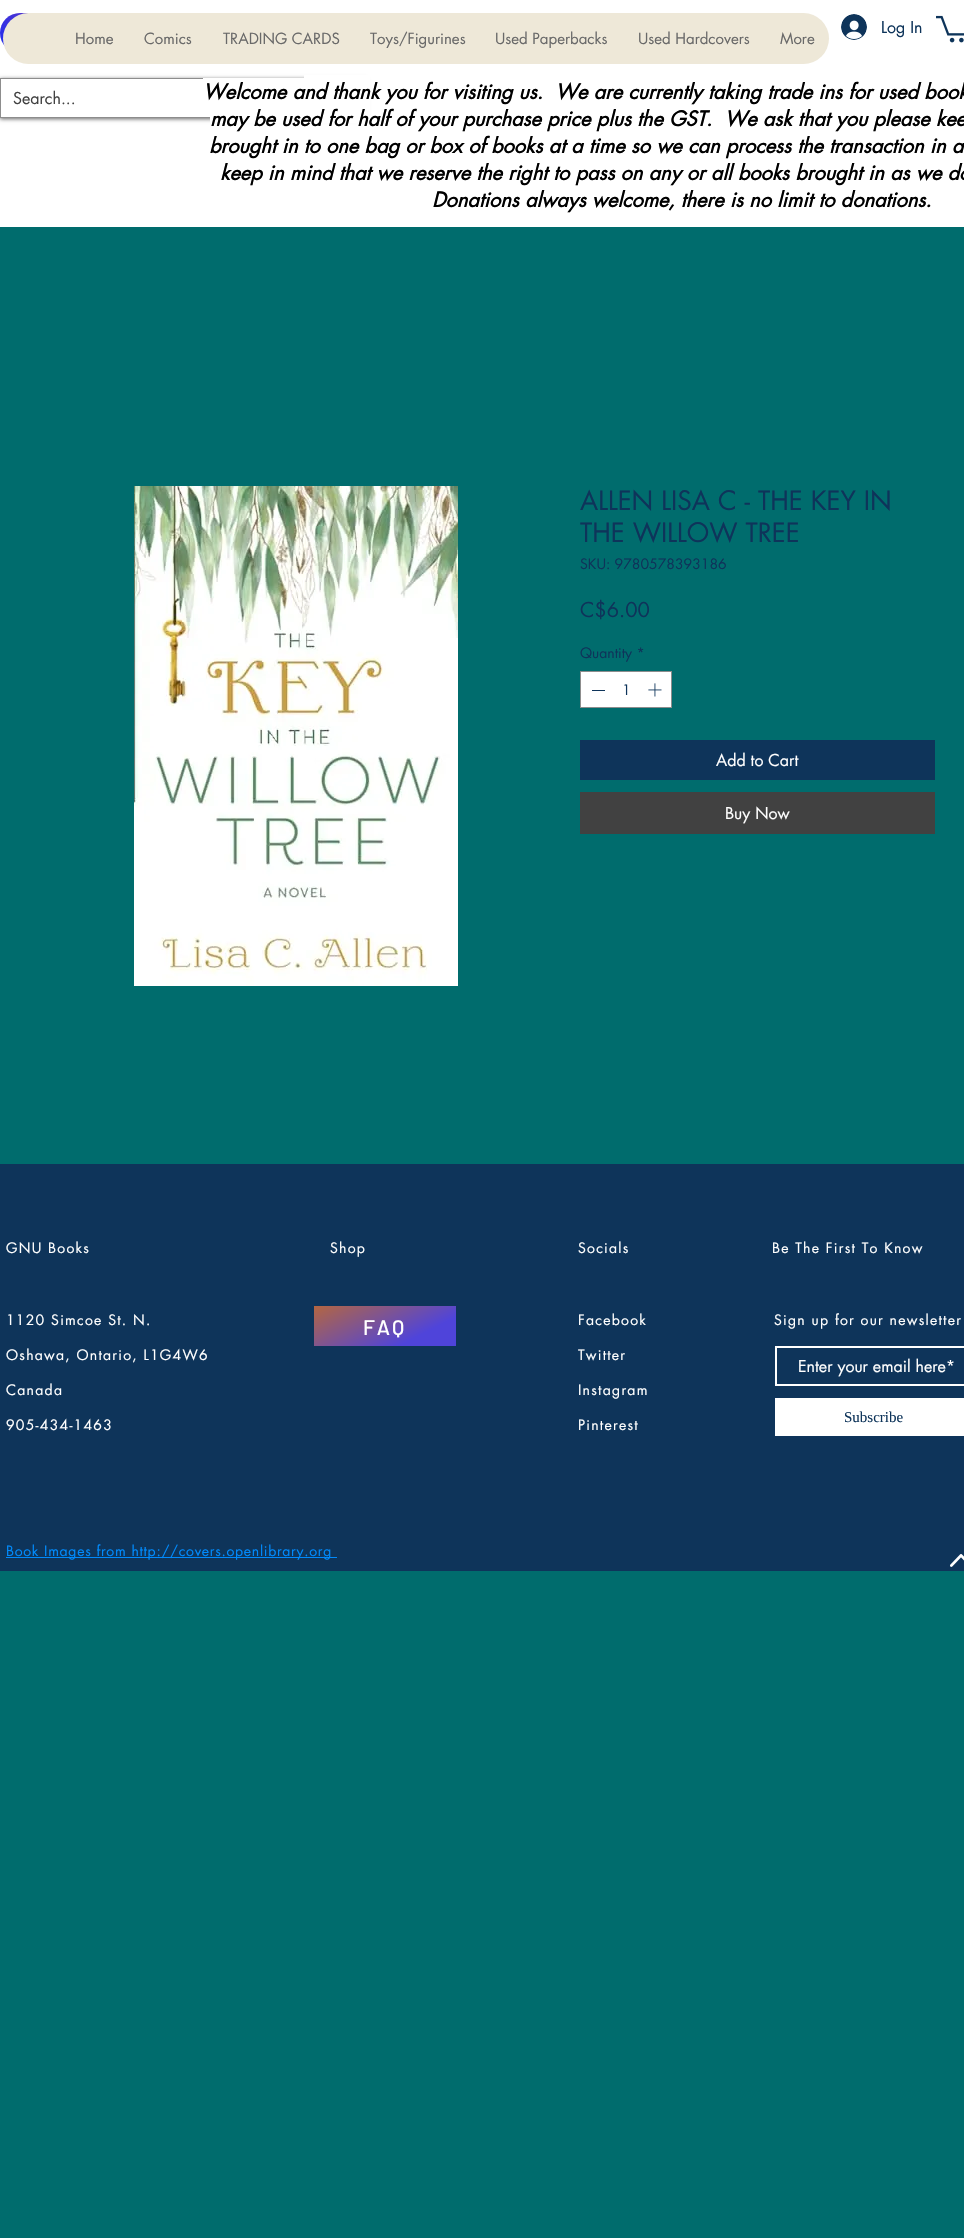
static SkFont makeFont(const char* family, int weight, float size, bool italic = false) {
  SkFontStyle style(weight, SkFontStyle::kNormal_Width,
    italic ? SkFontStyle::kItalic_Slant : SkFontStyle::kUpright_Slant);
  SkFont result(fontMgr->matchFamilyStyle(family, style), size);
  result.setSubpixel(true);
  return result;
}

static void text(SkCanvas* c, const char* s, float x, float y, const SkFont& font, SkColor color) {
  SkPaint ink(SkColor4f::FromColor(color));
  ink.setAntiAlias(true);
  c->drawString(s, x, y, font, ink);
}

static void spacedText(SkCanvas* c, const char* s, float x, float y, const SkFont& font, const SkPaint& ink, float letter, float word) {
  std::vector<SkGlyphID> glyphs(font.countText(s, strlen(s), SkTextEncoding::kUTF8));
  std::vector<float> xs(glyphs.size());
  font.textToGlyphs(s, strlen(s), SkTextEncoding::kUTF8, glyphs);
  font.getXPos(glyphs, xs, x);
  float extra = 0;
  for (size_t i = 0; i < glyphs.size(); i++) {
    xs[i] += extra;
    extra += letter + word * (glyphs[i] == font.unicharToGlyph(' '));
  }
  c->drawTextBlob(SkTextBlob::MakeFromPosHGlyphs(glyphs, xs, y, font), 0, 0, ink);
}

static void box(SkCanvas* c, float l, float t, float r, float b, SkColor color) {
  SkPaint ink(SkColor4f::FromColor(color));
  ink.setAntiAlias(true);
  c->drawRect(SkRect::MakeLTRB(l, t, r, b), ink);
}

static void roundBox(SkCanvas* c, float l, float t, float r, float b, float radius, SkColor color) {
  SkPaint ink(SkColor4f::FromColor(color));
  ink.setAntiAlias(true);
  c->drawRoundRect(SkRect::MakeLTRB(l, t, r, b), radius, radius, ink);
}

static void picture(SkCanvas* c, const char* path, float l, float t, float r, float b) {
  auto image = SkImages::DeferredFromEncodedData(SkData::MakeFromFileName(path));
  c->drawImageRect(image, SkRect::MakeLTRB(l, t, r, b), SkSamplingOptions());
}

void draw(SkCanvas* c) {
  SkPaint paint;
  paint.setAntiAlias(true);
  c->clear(0xff006c6d);
  box(c, 0, 0, 964, 227, 0xffffffff);
  roundBox(c, 0, 13, 247, 53, 20, 0xff1d2cf3);
  {
    const SkColor colors[] = {0xffff4f4f, 0x00ff4f4f};
    const float stops[] = {0, 1};
    const SkPoint ends[] = {{204, -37}, {43, 103}};
    paint.setShader(SkGradientShader::MakeLinear(ends, colors, stops, 2, SkTileMode::kClamp));
    paint.setAlpha(255);
  }
  c->drawRoundRect(SkRect::MakeLTRB(0, 13, 247, 53), 20, 20, paint);
  roundBox(c, 3, 13, 829, 64, 25.5f, 0xffeee8d8);
  SkFont face1 = makeFont("futura", 400, 15);
  text(c, "Home", 75, 44, face1, 0xff696969);
  text(c, "Comics", 144, 44, face1, 0xff696969);
  text(c, "TRADING CARDS", 223, 44, face1, 0xff696969);
  text(c, "Toys/Figurines", 370, 44, face1, 0xff696969);
  text(c, "Used Paperbacks", 495, 44, face1, 0xff696969);
  text(c, "Used Hardcovers", 638, 44, face1, 0xff696969);
  text(c, "More", 780, 44, face1, 0xff696969);
  picture(c, "img_01.png", 841, 14, 867, 40);
  SkFont face2 = makeFont("futura", 400, 16);
  text(c, "Log In", 881, 33, face2, 0xff0e345a);
  picture(c, "img_02.png", 936, 15, 964, 43);
  c->save();
  c->clipPath(SkPathBuilder(SkPathFillType::kEvenOdd).moveTo(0, 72).lineTo(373, 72).lineTo(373, 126).lineTo(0, 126).close().moveTo(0, 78).lineTo(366, 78).lineTo(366, 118).lineTo(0, 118).close().detach(), true);
  paint.setShader(nullptr);
  paint.setColor(0x99000000);
  paint.setMaskFilter(SkMaskFilter::MakeBlur(kNormal_SkBlurStyle, 2));
  c->drawRect(SkRect::MakeLTRB(0, 79, 366, 119), paint);
  paint.setMaskFilter(nullptr);
  c->restore();
  paint.setStyle(SkPaint::kStroke_Style);
  paint.setStrokeWidth(1);
  paint.setColor(0xff8d8d8d);
  c->drawRect(SkRect::MakeLTRB(0.5f, 78.5f, 365.5f, 117.5f), paint);
  box(c, 304, 75, 370, 123, 0xffffffff);
  text(c, "Search...", 13, 104, face2, 0xff414141);
  SkFont face3 = makeFont("futura", 700, 20, true);
  text(c, "Welcome and thank you for visiting us.  We are currently taking trade ins for used book", 203, 99, face3, 0xff000000);
  box(c, 203, 78, 304, 79, 0xffffffff);
  box(c, 210, 117, 304, 123, 0xffffffff);
  text(c, "may be used for half of your purchase price plus the GST.  We ask that you please kee", 210, 126, face3, 0xff000000);
  text(c, "brought in to one bag or box of books at a time so we can process the transaction in a", 209, 153, face3, 0xff000000);
  text(c, "keep in mind that we reserve the right to pass on any or all books brought in as we do", 220, 180, face3, 0xff000000);
  text(c, "Donations always welcome, there is no limit to donations.", 432, 207, face3, 0xff000000);
  picture(c, "img_03.png", 134, 486, 458, 986);
  SkFont face4 = makeFont("futura", 400, 26);
  text(c, "ALLEN LISA C - THE KEY IN", 580, 510, face4, 0xff0e345a);
  text(c, "THE WILLOW TREE", 580, 542, face4, 0xff0e345a);
  SkFont face5 = makeFont("futura", 400, 14);
  text(c, "SKU: 9780578393186", 580, 569, face5, 0xff0e345a);
  SkFont face6 = makeFont("futura", 400, 20);
  text(c, "C$6.00", 580, 617, face6, 0xff0e345a);
  text(c, "Quantity *", 580, 658, face5, 0xff0e345a);
  paint.setStyle(SkPaint::kFill_Style);
  paint.setColor(0xffffffff);
  c->drawRect(SkRect::MakeLTRB(580.5f, 671.5f, 671.5f, 707.5f), paint);
  paint.setStyle(SkPaint::kStroke_Style);
  paint.setColor(0xff8d8d8d);
  c->drawRect(SkRect::MakeLTRB(580.5f, 671.5f, 671.5f, 707.5f), paint);
  box(c, 592, 690, 605, 691, 0xff0e345a);
  text(c, "1", 622, 695, face5, 0xff0e345a);
  picture(c, "img_04.png", 648, 683, 662, 697);
  box(c, 580, 740, 935, 780, 0xff0e345a);
  text(c, "Add to Cart", 716, 766, face2, 0xffffffff);
  box(c, 580, 792, 935, 834, 0xff414141);
  text(c, "Buy Now", 725, 819, face2, 0xffffffff);
  box(c, 0, 1164, 964, 1571, 0xff0e345a);
  paint.setStyle(SkPaint::kFill_Style);
  paint.setColor(0xffffffff);
  spacedText(c, "GNU Books", 6, 1253, face5, paint, 1.25f, 0);
  spacedText(c, "Shop", 330, 1253, face5, paint, 1.25f, 0);
  spacedText(c, "Socials", 578, 1253, face5, paint, 1.25f, 0);
  spacedText(c, "Be The First To Know", 772, 1253, face5, paint, 1.25f, 0);
  spacedText(c, "1120 Simcoe St. N.", 6, 1325, face5, paint, 1.25f, 0);
  spacedText(c, "Oshawa, Ontario, L1G4W6", 6, 1360, face5, paint, 1.25f, 0);
  spacedText(c, "Canada", 6, 1395, face5, paint, 1.25f, 0);
  spacedText(c, "905-434-1463", 6, 1430, face5, paint, 1.25f, 0);
  {
    const SkColor colors[] = {0xff4f44da, 0xffb46640};
    const float stops[] = {0.26f, 1};
    const SkPoint ends[] = {{408, 1371}, {362, 1281}};
    paint.setShader(SkGradientShader::MakeLinear(ends, colors, stops, 2, SkTileMode::kClamp));
    paint.setAlpha(255);
  }
  c->drawRect(SkRect::MakeLTRB(314, 1306, 456, 1346), paint);
  SkFont face7 = makeFont("Barlow", 500, 21);
  paint.setShader(nullptr);
  paint.setColor(0xffffffff);
  spacedText(c, "FAQ", 363, 1335, face7, paint, 2, 0);
  spacedText(c, "Facebook", 578, 1325, face5, paint, 1.25f, 0);
  spacedText(c, "Twitter", 578, 1360, face5, paint, 1.25f, 0);
  spacedText(c, "Instagram", 578, 1395, face5, paint, 1.25f, 0);
  spacedText(c, "Pinterest", 578, 1430, face5, paint, 1.25f, 0);
  spacedText(c, "Sign up for our newsletter", 774, 1325, face5, paint, 1.25f, 0);
  paint.setStyle(SkPaint::kStroke_Style);
  paint.setStrokeWidth(2);
  c->drawRect(SkRect::MakeLTRB(776, 1347, 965, 1385), paint);
  text(c, "Enter your email here*", 798, 1372, face2, 0xffffffff);
  box(c, 775, 1398, 964, 1436, 0xffffffff);
  SkFont face8 = makeFont("Liberation Serif", 400, 15);
  text(c, "Subscribe", 844, 1422, face8, 0xff0e345a);
  box(c, 6, 1557, 337, 1558, 0xff008afc);
  paint.setStyle(SkPaint::kFill_Style);
  paint.setColor(0xff008afc);
  spacedText(c, "Book Images from http://covers.openlibrary.org", 6, 1556, face5, paint, 0.7f, 0);
  picture(c, "img_05.png", 950, 1554, 964, 1567);
}
